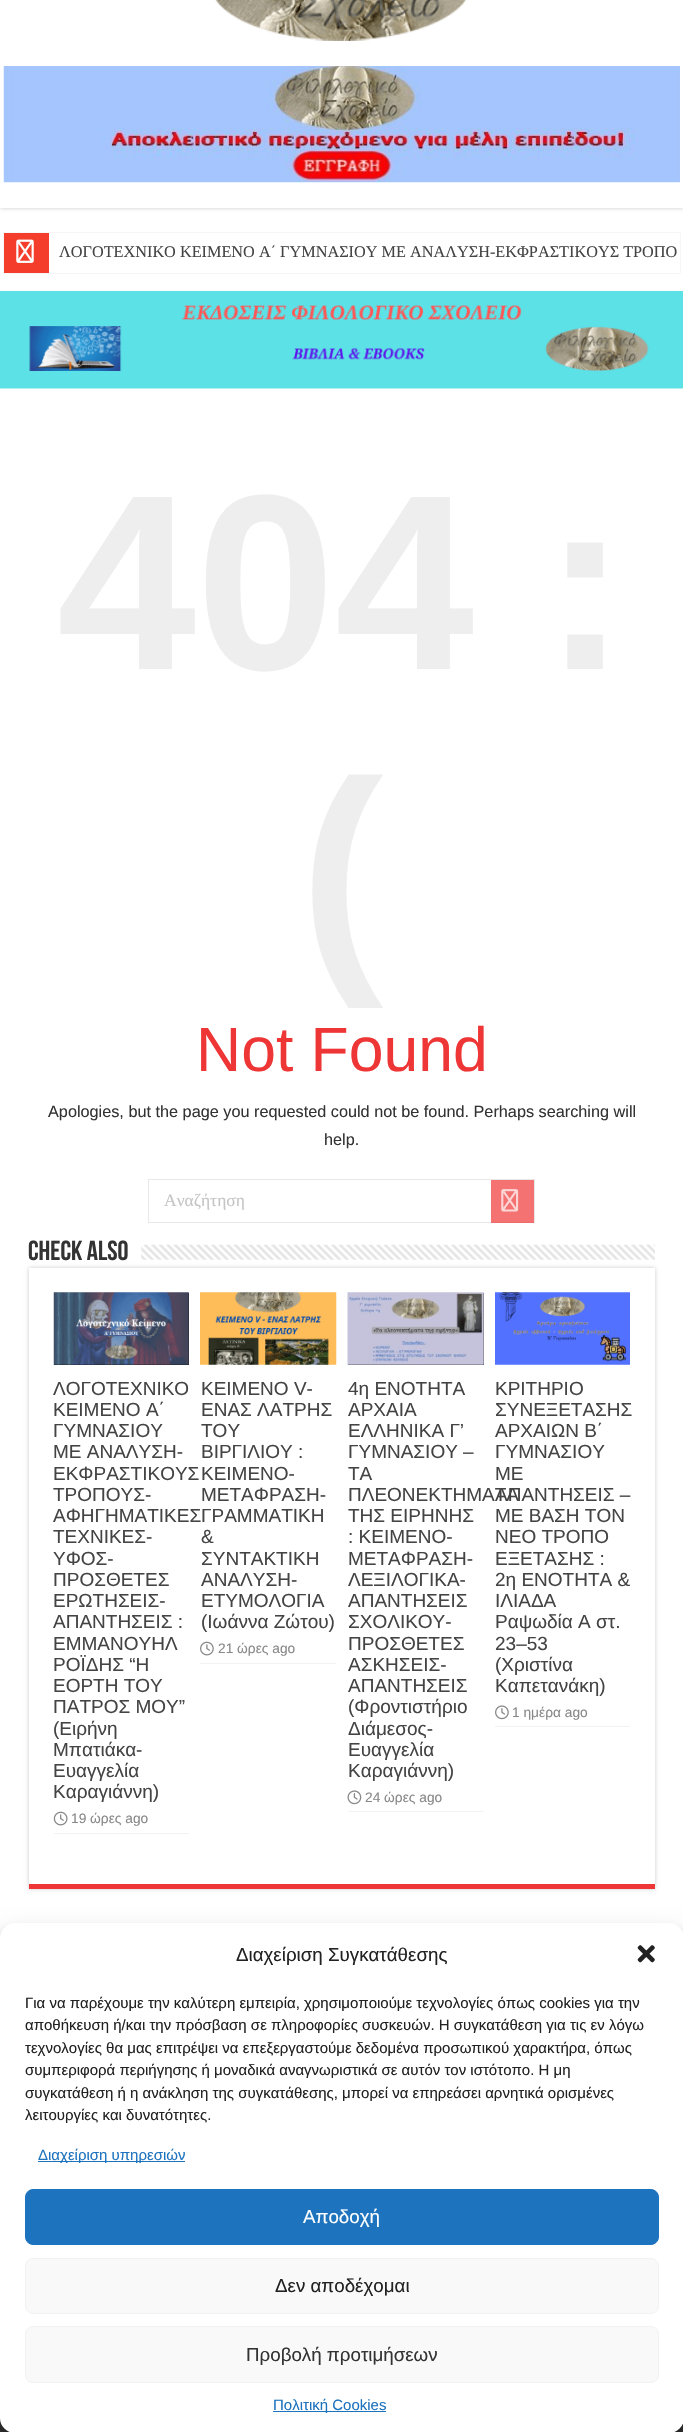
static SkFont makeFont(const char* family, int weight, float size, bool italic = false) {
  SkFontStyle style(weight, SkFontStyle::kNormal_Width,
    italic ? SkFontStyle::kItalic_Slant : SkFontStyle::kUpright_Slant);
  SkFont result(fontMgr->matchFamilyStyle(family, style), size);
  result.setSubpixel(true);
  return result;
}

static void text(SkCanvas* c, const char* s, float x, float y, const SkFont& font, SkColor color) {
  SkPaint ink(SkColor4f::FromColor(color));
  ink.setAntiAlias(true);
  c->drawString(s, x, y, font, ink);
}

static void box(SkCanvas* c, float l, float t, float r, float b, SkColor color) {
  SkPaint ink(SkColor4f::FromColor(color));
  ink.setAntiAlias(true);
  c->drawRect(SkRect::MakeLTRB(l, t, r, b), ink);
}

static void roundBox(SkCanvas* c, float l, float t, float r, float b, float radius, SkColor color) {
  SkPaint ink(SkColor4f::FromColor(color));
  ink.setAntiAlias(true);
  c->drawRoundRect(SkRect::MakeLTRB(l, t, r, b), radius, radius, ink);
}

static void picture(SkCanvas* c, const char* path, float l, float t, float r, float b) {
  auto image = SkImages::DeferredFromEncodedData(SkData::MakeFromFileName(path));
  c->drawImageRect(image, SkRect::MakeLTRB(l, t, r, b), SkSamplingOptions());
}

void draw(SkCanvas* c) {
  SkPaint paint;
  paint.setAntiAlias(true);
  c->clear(0xffffffff);
  paint.setColor(0xffcacaca);
  paint.setMaskFilter(SkMaskFilter::MakeBlur(kNormal_SkBlurStyle, 2));
  c->drawRect(SkRect::MakeLTRB(0, -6, 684, 208), paint);
  paint.setMaskFilter(nullptr);
  box(c, 0, 0, 683, 208, 0xffffffff);
  picture(c, "img_01.png", 215, 0, 467, 41);
  picture(c, "img_02.png", 3, 66, 680, 183);
  paint.setMaskFilter(SkMaskFilter::MakeBlur(kNormal_SkBlurStyle, 0.5f));
  c->drawRect(SkRect::MakeLTRB(4, 233, 680, 273), paint);
  paint.setMaskFilter(nullptr);
  box(c, 49, 233, 680, 273, 0xffffffff);
  box(c, 4, 233, 49, 273, 0xfff43d2a);
  picture(c, "img_03.png", 16, 239, 34, 263);
  SkFont face1 = makeFont("Liberation Serif", 400, 16.25f);
  text(c, "ΛΟΓΟΤΕΧΝΙΚΟ ΚΕΙΜΕΝΟ Α΄ ΓΥΜΝΑΣΙΟΥ ΜΕ ΑΝΑΛΥΣΗ-ΕΚΦΡΑΣΤΙΚΟΥΣ ΤΡΟΠΟ", 59, 257, face1, 0xff444444);
  picture(c, "img_04.png", 0, 291, 683, 389);
  SkFont face2 = makeFont("Liberation Sans", 700, 250);
  text(c, "404 :", 57, 669, face2, 0xffeeeeee);
  text(c, "(", 300, 956, face2, 0xffeeeeee);
  SkFont face3 = makeFont("Liberation Sans", 400, 62.5f);
  text(c, "Not Found", 196, 1071, face3, 0xffef3636);
  SkFont face4 = makeFont("Liberation Sans", 400, 16.25f);
  text(c, "Apologies, but the page you requested could not be found. Perhaps searching will", 48, 1117, face4, 0xff333333);
  text(c, "help.", 324, 1145, face4, 0xff333333);
  paint.setStyle(SkPaint::kStroke_Style);
  paint.setStrokeWidth(1);
  paint.setColor(0xffe8e8e8);
  c->drawRect(SkRect::MakeLTRB(148.5f, 1179.5f, 534.5f, 1222.5f), paint);
  SkFont face5 = makeFont("Liberation Serif", 400, 17.5f);
  text(c, "Αναζήτηση", 164, 1206, face5, 0xffc5c5c5);
  box(c, 491, 1180, 534, 1223, 0xb3ef3636);
  picture(c, "img_05.png", 501, 1189, 519, 1212);
  SkFont face6 = makeFont("Bebas Neue", 700, 27.5f);
  text(c, "Check Also", 28, 1260, face6, 0xff333333);
  picture(c, "img_06.png", 141, 1244, 655, 1260);
  paint.setStyle(SkPaint::kFill_Style);
  paint.setColor(0xffcacaca);
  paint.setMaskFilter(SkMaskFilter::MakeBlur(kNormal_SkBlurStyle, 2));
  c->drawRect(SkRect::MakeLTRB(29, 1268, 655, 1889), paint);
  paint.setMaskFilter(nullptr);
  box(c, 29, 1268, 655, 1884, 0xffffffff);
  box(c, 29, 1884, 655, 1889, 0xffef3636);
  box(c, 54, 1293, 189, 1365, 0xff000000);
  picture(c, "img_07.png", 53, 1292, 189, 1365);
  SkFont face7 = makeFont("Liberation Sans", 400, 19);
  text(c, "ΛΟΓΟΤΕΧΝΙΚΟ", 53, 1395, face7, 0xff444444);
  text(c, "ΚΕΙΜΕΝΟ Α΄", 53, 1416, face7, 0xff444444);
  text(c, "ΓΥΜΝΑΣΙΟΥ", 53, 1437, face7, 0xff444444);
  text(c, "ΜΕ ΑΝΑΛΥΣΗ-", 53, 1458, face7, 0xff444444);
  text(c, "ΕΚΦΡΑΣΤΙΚΟΥΣ", 53, 1480, face7, 0xff444444);
  text(c, "ΤΡΟΠΟΥΣ-", 53, 1501, face7, 0xff444444);
  text(c, "ΑΦΗΓΗΜΑΤΙΚΕΣ", 53, 1522, face7, 0xff444444);
  text(c, "ΤΕΧΝΙΚΕΣ-", 53, 1543, face7, 0xff444444);
  text(c, "ΥΦΟΣ-", 53, 1565, face7, 0xff444444);
  text(c, "ΠΡΟΣΘΕΤΕΣ", 53, 1586, face7, 0xff444444);
  text(c, "ΕΡΩΤΗΣΕΙΣ-", 53, 1607, face7, 0xff444444);
  text(c, "ΑΠΑΝΤΗΣΕΙΣ :", 53, 1628, face7, 0xff444444);
  text(c, "ΕΜΜΑΝΟΥΗΛ", 53, 1650, face7, 0xff444444);
  text(c, "ΡΟΪΔΗΣ “Η", 53, 1671, face7, 0xff444444);
  text(c, "ΕΟΡΤΗ ΤΟΥ", 53, 1692, face7, 0xff444444);
  text(c, "ΠΑΤΡΟΣ ΜΟΥ”", 53, 1713, face7, 0xff444444);
  text(c, "(Ειρήνη", 53, 1735, face7, 0xff444444);
  text(c, "Μπατιάκα-", 53, 1756, face7, 0xff444444);
  text(c, "Ευαγγελία", 53, 1777, face7, 0xff444444);
  text(c, "Καραγιάννη)", 53, 1798, face7, 0xff444444);
  box(c, 54, 1833, 189, 1834, 0xfff2f2f2);
  picture(c, "img_08.png", 53, 1811, 68, 1826);
  SkFont face8 = makeFont("Liberation Sans", 400, 13.75f);
  text(c, "19 ώρες ago", 71, 1823, face8, 0xff888888);
  picture(c, "img_09.png", 200, 1292, 337, 1365);
  text(c, "ΚΕΙΜΕΝΟ V-", 201, 1395, face7, 0xff444444);
  text(c, "ΕΝΑΣ ΛΑΤΡΗΣ", 201, 1416, face7, 0xff444444);
  text(c, "ΤΟΥ", 201, 1437, face7, 0xff444444);
  text(c, "ΒΙΡΓΙΛΙΟΥ :", 201, 1458, face7, 0xff444444);
  text(c, "ΚΕΙΜΕΝΟ-", 201, 1480, face7, 0xff444444);
  text(c, "ΜΕΤΑΦΡΑΣΗ-", 201, 1501, face7, 0xff444444);
  text(c, "ΓΡΑΜΜΑΤΙΚΗ", 201, 1522, face7, 0xff444444);
  text(c, "&", 201, 1543, face7, 0xff444444);
  text(c, "ΣΥΝΤΑΚΤΙΚΗ", 201, 1565, face7, 0xff444444);
  text(c, "ΑΝΑΛΥΣΗ-", 201, 1586, face7, 0xff444444);
  text(c, "ΕΤΥΜΟΛΟΓΙΑ", 201, 1607, face7, 0xff444444);
  text(c, "(Ιωάννα Ζώτου)", 201, 1628, face7, 0xff444444);
  box(c, 200, 1663, 336, 1664, 0xfff2f2f2);
  picture(c, "img_10.png", 200, 1641, 214, 1656);
  text(c, "21 ώρες ago", 218, 1653, face8, 0xff888888);
  box(c, 348, 1293, 484, 1365, 0xff000000);
  picture(c, "img_11.png", 347, 1292, 484, 1365);
  text(c, "4η ΕΝΟΤΗΤΑ", 348, 1395, face7, 0xff444444);
  text(c, "ΑΡΧΑΙΑ", 348, 1416, face7, 0xff444444);
  text(c, "ΕΛΛΗΝΙΚΑ Γ’", 348, 1437, face7, 0xff444444);
  text(c, "ΓΥΜΝΑΣΙΟΥ –", 348, 1458, face7, 0xff444444);
  text(c, "ΤΑ", 348, 1480, face7, 0xff444444);
  text(c, "ΠΛΕΟΝΕΚΤΗΜΑΤΑ", 348, 1501, face7, 0xff444444);
  text(c, "ΤΗΣ ΕΙΡΗΝΗΣ", 348, 1522, face7, 0xff444444);
  text(c, ": ΚΕΙΜΕΝΟ-", 348, 1543, face7, 0xff444444);
  text(c, "ΜΕΤΑΦΡΑΣΗ-", 348, 1565, face7, 0xff444444);
  text(c, "ΛΕΞΙΛΟΓΙΚΑ-", 348, 1586, face7, 0xff444444);
  text(c, "ΑΠΑΝΤΗΣΕΙΣ", 348, 1607, face7, 0xff444444);
  text(c, "ΣΧΟΛΙΚΟΥ-", 348, 1628, face7, 0xff444444);
  text(c, "ΠΡΟΣΘΕΤΕΣ", 348, 1650, face7, 0xff444444);
  text(c, "ΑΣΚΗΣΕΙΣ-", 348, 1671, face7, 0xff444444);
  text(c, "ΑΠΑΝΤΗΣΕΙΣ", 348, 1692, face7, 0xff444444);
  text(c, "(Φροντιστήριο", 348, 1713, face7, 0xff444444);
  text(c, "Διάμεσος-", 348, 1735, face7, 0xff444444);
  text(c, "Ευαγγελία", 348, 1756, face7, 0xff444444);
  text(c, "Καραγιάννη)", 348, 1777, face7, 0xff444444);
  box(c, 348, 1811, 484, 1812, 0xfff2f2f2);
  picture(c, "img_12.png", 347, 1790, 362, 1805);
  text(c, "24 ώρες ago", 365, 1802, face8, 0xff888888);
  picture(c, "img_13.png", 495, 1292, 630, 1365);
  text(c, "ΚΡΙΤΗΡΙΟ", 495, 1395, face7, 0xff444444);
  text(c, "ΣΥΝΕΞΕΤΑΣΗΣ", 495, 1416, face7, 0xff444444);
  text(c, "ΑΡΧΑΙΩΝ Β΄", 495, 1437, face7, 0xff444444);
  text(c, "ΓΥΜΝΑΣΙΟΥ", 495, 1458, face7, 0xff444444);
  text(c, "ΜΕ", 495, 1480, face7, 0xff444444);
  text(c, "ΑΠΑΝΤΗΣΕΙΣ –", 495, 1501, face7, 0xff444444);
  text(c, "ΜΕ ΒΑΣΗ ΤΟΝ", 495, 1522, face7, 0xff444444);
  text(c, "ΝΕΟ ΤΡΟΠΟ", 495, 1543, face7, 0xff444444);
  text(c, "ΕΞΕΤΑΣΗΣ :", 495, 1565, face7, 0xff444444);
  text(c, "2η ΕΝΟΤΗΤΑ &", 495, 1586, face7, 0xff444444);
  text(c, "ΙΛΙΑΔΑ", 495, 1607, face7, 0xff444444);
  text(c, "Ραψωδία Α στ.", 495, 1628, face7, 0xff444444);
  text(c, "23–53", 495, 1650, face7, 0xff444444);
  text(c, "(Χριστίνα", 495, 1671, face7, 0xff444444);
  text(c, "Καπετανάκη)", 495, 1692, face7, 0xff444444);
  box(c, 495, 1726, 630, 1727, 0xfff2f2f2);
  picture(c, "img_14.png", 495, 1705, 509, 1720);
  text(c, "1 ημέρα ago", 512, 1717, face8, 0xff888888);
  box(c, 0, 2418, 683, 2432, 0xff333333);
  paint.setColor(0x3b000000);
  paint.setMaskFilter(SkMaskFilter::MakeBlur(kNormal_SkBlurStyle, 4));
  c->drawRoundRect(SkRect::MakeLTRB(0, 1930, 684, 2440), 15, 15, paint);
  paint.setMaskFilter(nullptr);
  paint.setColor(0x30000000);
  paint.setMaskFilter(SkMaskFilter::MakeBlur(kNormal_SkBlurStyle, 12.5f));
  c->drawRoundRect(SkRect::MakeLTRB(0, 1935, 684, 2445), 15, 15, paint);
  paint.setMaskFilter(nullptr);
  roundBox(c, 0, 1923, 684, 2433, 15, 0xffffffff);
  SkFont face9 = makeFont("Liberation Sans", 400, 18.75f);
  text(c, "Διαχείριση Συγκατάθεσης", 236, 1961, face9, 0xff222222);
  picture(c, "img_15.png", 637, 1945, 655, 1963);
  SkFont face10 = makeFont("Liberation Sans", 400, 15);
  text(c, "Για να παρέχουμε την καλύτερη εμπειρία, χρησιμοποιούμε τεχνολογίες όπως cookies για την", 25, 2008, face10, 0xff222222);
  text(c, "αποθήκευση ή/και την πρόσβαση σε πληροφορίες συσκευών. Η συγκατάθεση για τις εν λόγω", 25, 2030, face10, 0xff222222);
  text(c, "τεχνολογίες θα μας επιτρέψει να επεξεργαστούμε δεδομένα προσωπικού χαρακτήρα, όπως", 25, 2053, face10, 0xff222222);
  text(c, "συμπεριφορά περιήγησης ή μοναδικά αναγνωριστικά σε αυτόν τον ιστότοπο. Η μη", 25, 2075, face10, 0xff222222);
  text(c, "συγκατάθεση ή η ανάκληση της συγκατάθεσης, μπορεί να επηρεάσει αρνητικά ορισμένες", 25, 2098, face10, 0xff222222);
  text(c, "λειτουργίες και δυνατότητες.", 25, 2120, face10, 0xff222222);
  box(c, 38, 2161, 185, 2162, 0xff1e73be);
  text(c, "Διαχείριση υπηρεσιών", 38, 2160, face10, 0xff1e73be);
  paint.setColor(0xff1e73be);
  c->drawRoundRect(SkRect::MakeLTRB(25.5f, 2189.5f, 658.5f, 2244.5f), 7.5f, 7.5f, paint);
  paint.setStyle(SkPaint::kStroke_Style);
  c->drawRoundRect(SkRect::MakeLTRB(25.5f, 2189.5f, 658.5f, 2244.5f), 7.5f, 7.5f, paint);
  text(c, "Αποδοχή", 303, 2223, face9, 0xffffffff);
  paint.setStyle(SkPaint::kFill_Style);
  paint.setColor(0xfff9f9f9);
  c->drawRoundRect(SkRect::MakeLTRB(25.5f, 2258.5f, 658.5f, 2313.5f), 7.5f, 7.5f, paint);
  paint.setStyle(SkPaint::kStroke_Style);
  paint.setColor(0xfff2f2f2);
  c->drawRoundRect(SkRect::MakeLTRB(25.5f, 2258.5f, 658.5f, 2313.5f), 7.5f, 7.5f, paint);
  text(c, "Δεν αποδέχομαι", 275, 2292, face9, 0xff222222);
  paint.setStyle(SkPaint::kFill_Style);
  paint.setColor(0xfff9f9f9);
  c->drawRoundRect(SkRect::MakeLTRB(25.5f, 2326.5f, 658.5f, 2382.5f), 7.5f, 7.5f, paint);
  paint.setStyle(SkPaint::kStroke_Style);
  paint.setColor(0xfff2f2f2);
  c->drawRoundRect(SkRect::MakeLTRB(25.5f, 2326.5f, 658.5f, 2382.5f), 7.5f, 7.5f, paint);
  text(c, "Προβολή προτιμήσεων", 246, 2361, face9, 0xff333333);
  box(c, 273, 2411, 386, 2412, 0xff1e73be);
  text(c, "Πολιτική Cookies", 273, 2410, face10, 0xff1e73be);
}
